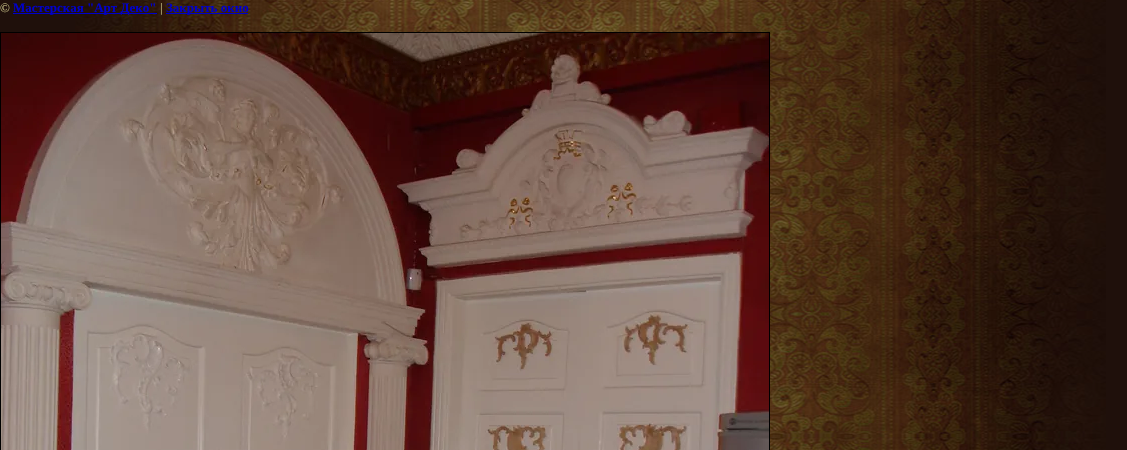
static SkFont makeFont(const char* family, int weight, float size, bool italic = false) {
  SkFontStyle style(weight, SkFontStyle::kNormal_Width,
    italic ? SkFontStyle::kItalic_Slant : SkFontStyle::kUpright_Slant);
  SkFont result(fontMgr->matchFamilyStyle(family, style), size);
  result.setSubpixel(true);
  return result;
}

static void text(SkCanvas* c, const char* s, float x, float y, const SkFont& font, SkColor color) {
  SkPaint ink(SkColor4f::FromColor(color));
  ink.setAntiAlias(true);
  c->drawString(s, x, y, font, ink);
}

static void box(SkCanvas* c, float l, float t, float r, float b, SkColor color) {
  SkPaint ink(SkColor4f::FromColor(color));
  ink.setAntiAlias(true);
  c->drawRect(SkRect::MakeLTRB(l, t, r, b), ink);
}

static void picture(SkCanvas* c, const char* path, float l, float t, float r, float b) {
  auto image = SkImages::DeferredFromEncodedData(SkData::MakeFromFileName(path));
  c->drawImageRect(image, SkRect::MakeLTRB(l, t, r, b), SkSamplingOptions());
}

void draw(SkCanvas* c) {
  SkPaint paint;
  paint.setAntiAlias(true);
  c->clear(0xff1f100b);
  picture(c, "img_01.png", 75, 0, 1106, 450);
  SkFont face1 = makeFont("Liberation Serif", 400, 13);
  text(c, "©", 0, 12, face1, 0xffc7bf86);
  box(c, 13, 13, 157, 14, 0xff0000cc);
  SkFont face2 = makeFont("Liberation Serif", 700, 13);
  text(c, "Мастерская \"Арт Деко\"", 13, 12, face2, 0xff0000cc);
  text(c, "|", 160, 12, face1, 0xffc7bf86);
  box(c, 166, 13, 248, 14, 0xff0000cc);
  text(c, "Закрыть окно", 166, 12, face2, 0xff0000cc);
  paint.setStyle(SkPaint::kStroke_Style);
  paint.setStrokeWidth(1);
  paint.setColor(0xff000000);
  c->drawRect(SkRect::MakeLTRB(0.5f, 32.5f, 769.5f, 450.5f), paint);
  picture(c, "img_02.png", 1, 33, 769, 450);
}
